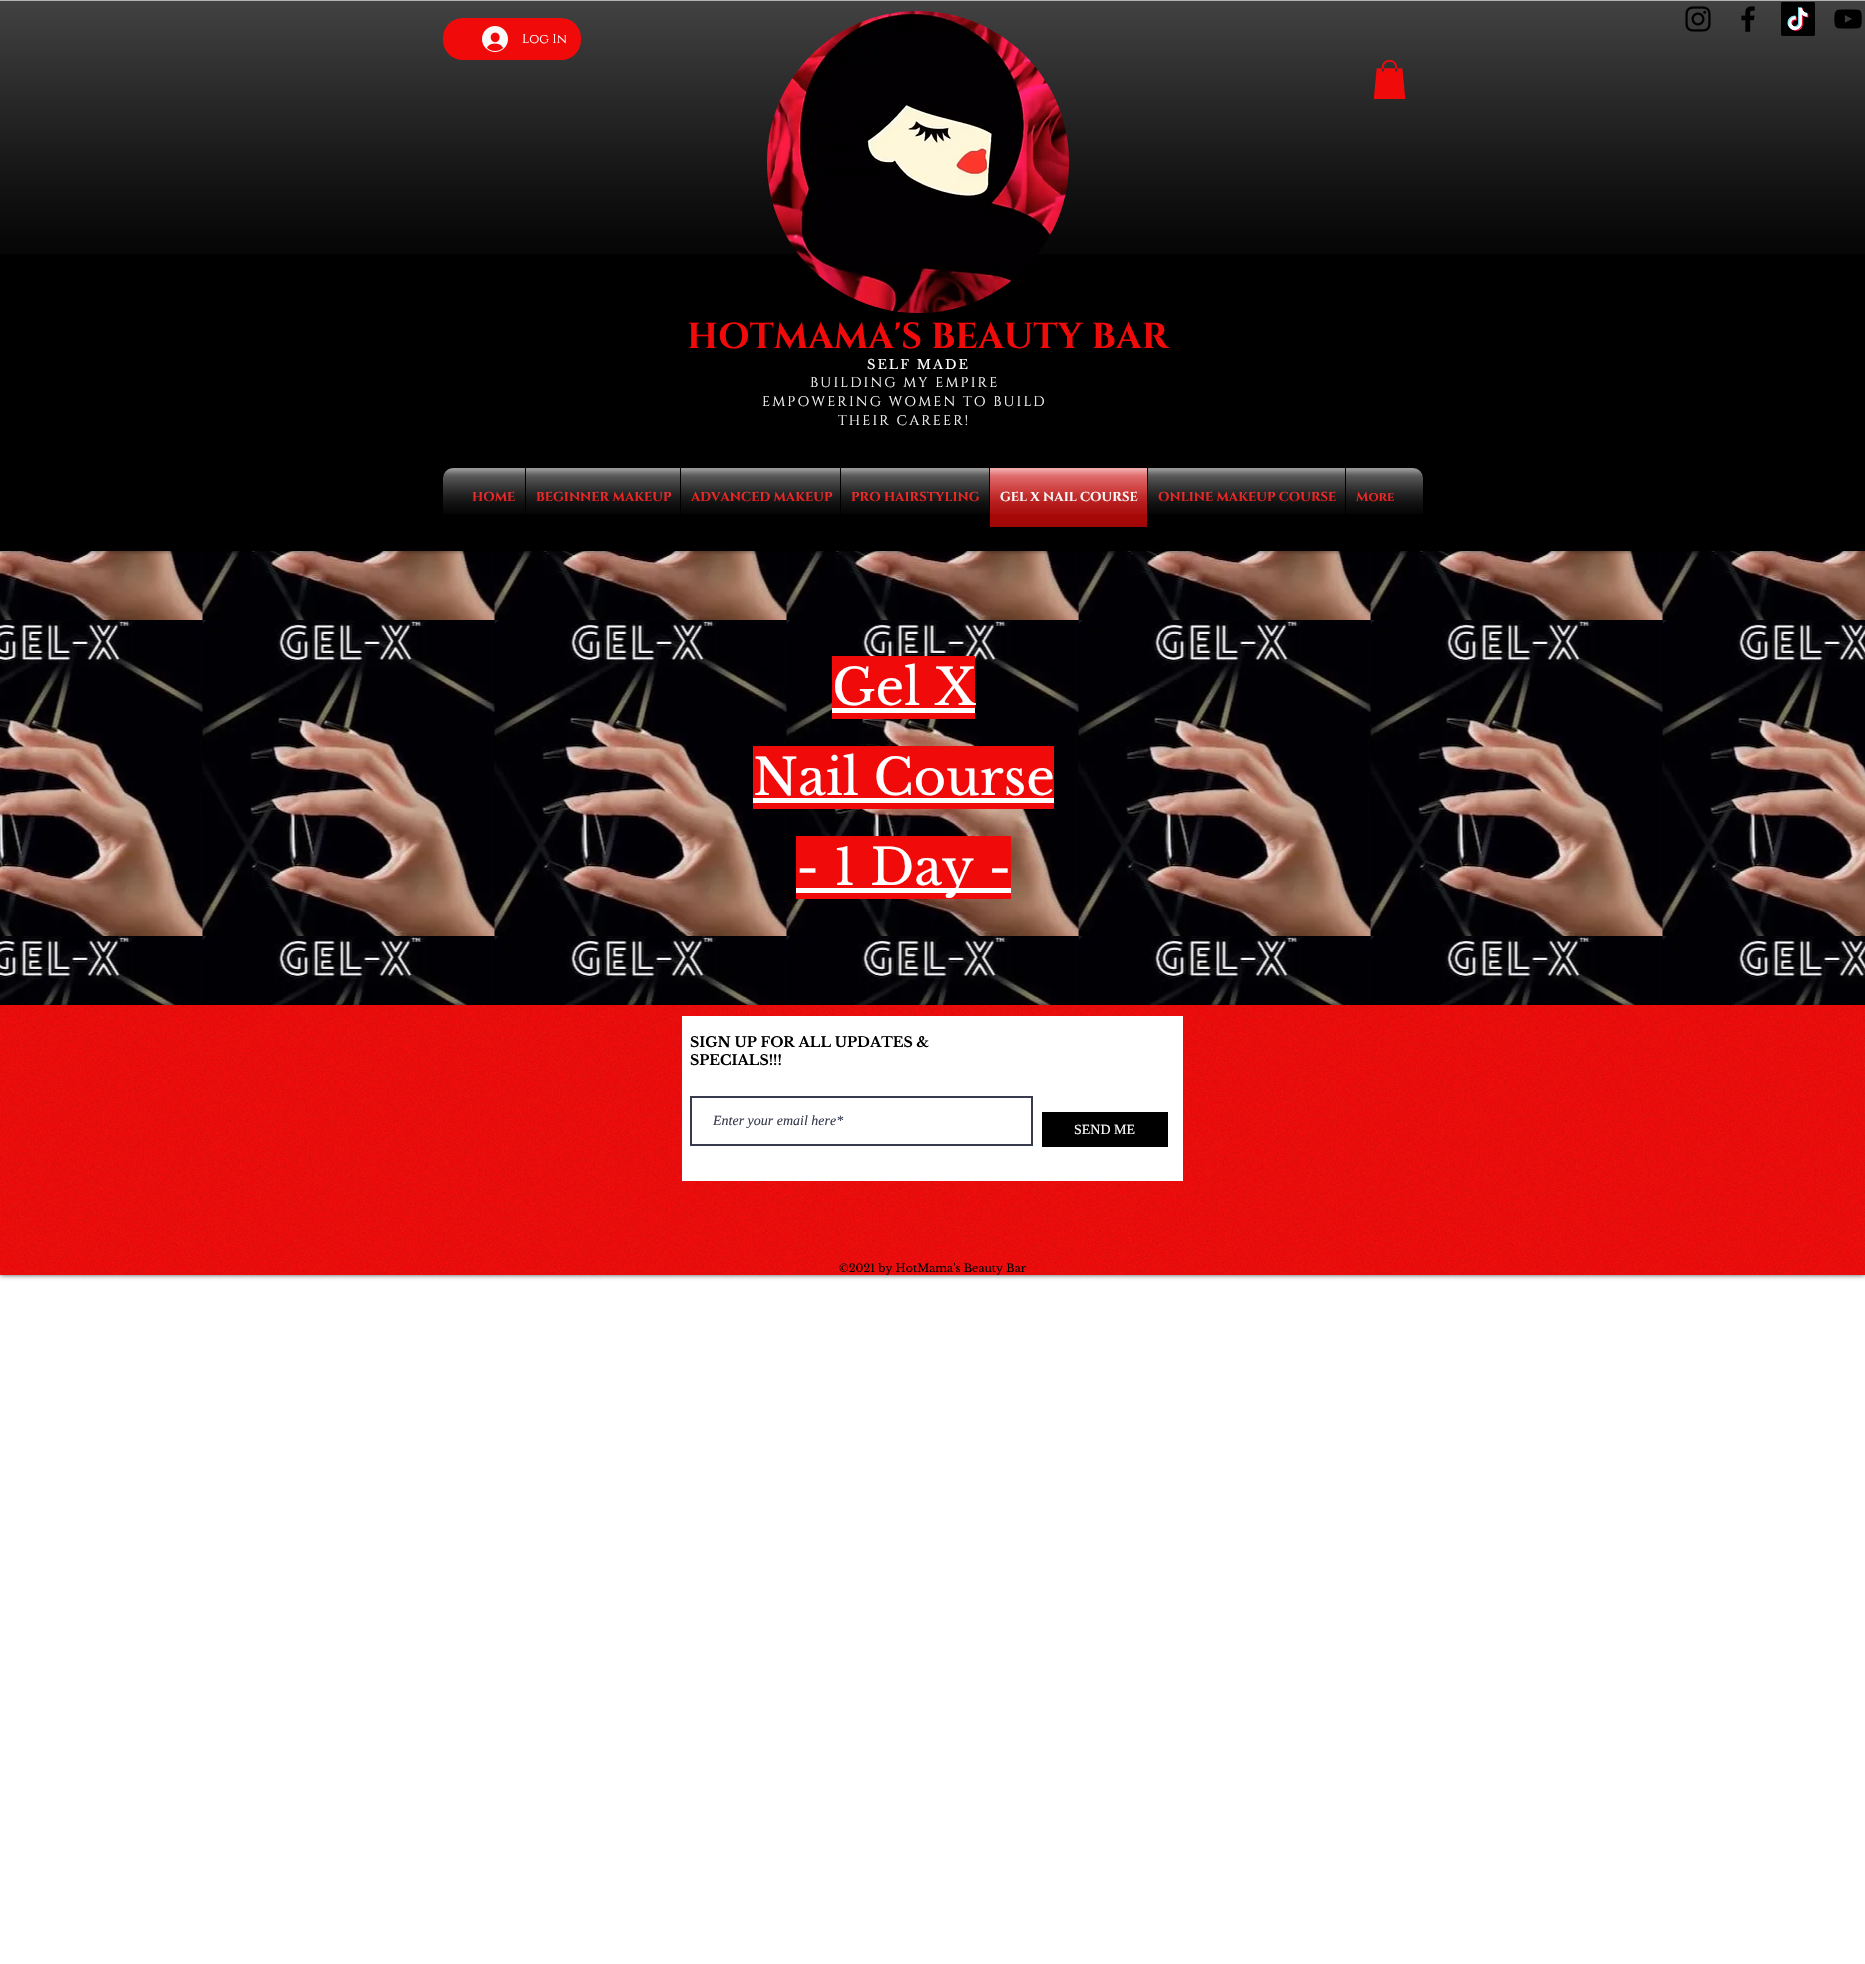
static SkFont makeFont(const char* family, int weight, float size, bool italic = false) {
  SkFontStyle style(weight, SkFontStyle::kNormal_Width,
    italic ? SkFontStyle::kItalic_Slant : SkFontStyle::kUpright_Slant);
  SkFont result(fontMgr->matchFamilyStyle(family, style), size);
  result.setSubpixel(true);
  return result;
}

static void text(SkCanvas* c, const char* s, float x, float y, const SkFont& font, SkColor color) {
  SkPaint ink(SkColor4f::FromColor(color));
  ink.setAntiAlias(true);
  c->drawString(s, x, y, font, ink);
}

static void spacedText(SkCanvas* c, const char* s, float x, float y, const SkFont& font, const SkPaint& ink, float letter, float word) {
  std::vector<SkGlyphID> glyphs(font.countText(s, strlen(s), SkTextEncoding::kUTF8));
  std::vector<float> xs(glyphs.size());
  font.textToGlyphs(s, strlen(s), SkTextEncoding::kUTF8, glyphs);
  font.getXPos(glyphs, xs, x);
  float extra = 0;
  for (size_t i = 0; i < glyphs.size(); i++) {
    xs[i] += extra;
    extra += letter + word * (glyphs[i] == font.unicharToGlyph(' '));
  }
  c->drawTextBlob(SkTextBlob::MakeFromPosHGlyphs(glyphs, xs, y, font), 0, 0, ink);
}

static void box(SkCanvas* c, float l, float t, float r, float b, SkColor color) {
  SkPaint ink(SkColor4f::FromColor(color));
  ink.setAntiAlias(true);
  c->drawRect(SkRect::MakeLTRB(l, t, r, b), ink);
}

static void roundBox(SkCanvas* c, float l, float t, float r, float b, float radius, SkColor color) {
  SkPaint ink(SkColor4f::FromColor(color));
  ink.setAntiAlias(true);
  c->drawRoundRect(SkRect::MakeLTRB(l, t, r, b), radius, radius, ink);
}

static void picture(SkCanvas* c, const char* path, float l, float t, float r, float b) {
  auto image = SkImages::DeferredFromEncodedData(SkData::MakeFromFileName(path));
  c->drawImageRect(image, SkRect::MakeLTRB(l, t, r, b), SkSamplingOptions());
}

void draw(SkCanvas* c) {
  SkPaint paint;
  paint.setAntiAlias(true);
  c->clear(0xffffffff);
  picture(c, "img_24.png", 0, 551, 1865, 1005);
  paint.setColor(0x99000000);
  paint.setMaskFilter(SkMaskFilter::MakeBlur(kNormal_SkBlurStyle, 2.5f));
  c->drawRect(SkRect::MakeLTRB(0, 0, 1865, 551), paint);
  paint.setMaskFilter(nullptr);
  box(c, 0, 1, 1865, 551, 0xff000000);
  picture(c, "img_05.png", 0, 1, 1865, 254);
  picture(c, "img_01.png", 1685, 6, 1711, 32);
  picture(c, "img_02.png", 1741, 6, 1755, 32);
  picture(c, "img_03.png", 1781, 2, 1815, 36);
  picture(c, "img_04.png", 1834, 9, 1862, 29);
  box(c, 0, 0, 1865, 1, 0xffb3b3b3);
  roundBox(c, 443, 18, 581, 60, 20, 0xfff00a0a);
  picture(c, "img_06.png", 482, 26, 508, 52);
  SkFont face1 = makeFont("Cinzel", 400, 13);
  text(c, "Log In", 522, 43, face1, 0xffffffff);
  picture(c, "img_07.png", 767, 11, 1069, 313);
  picture(c, "img_08.png", 1373, 60, 1406, 99);
  SkFont face2 = makeFont("Cinzel", 700, 36);
  text(c, "HOTMAMA'S BEAUTY BAR", 687, 348, face2, 0xfff00a0a);
  SkFont face3 = makeFont("Libre Baskerville", 400, 13);
  paint.setColor(0xffffffff);
  spacedText(c, "SELF MADE", 867, 369, face3, paint, 2, 0);
  SkFont face4 = makeFont("Cinzel", 400, 14);
  spacedText(c, "BUILDING MY EMPIRE", 810, 387, face4, paint, 2.1f, 0);
  spacedText(c, "EMPOWERING WOMEN TO BUILD", 762, 406, face4, paint, 2.1f, 0);
  spacedText(c, "THEIR CAREER!", 838, 425, face4, paint, 2.1f, 0);
  picture(c, "img_09.png", 443, 468, 1423, 514);
  box(c, 462, 468, 990, 514, 0xff000000);
  SkFont face5 = makeFont("Cinzel", 700, 13);
  text(c, "HOME", 472, 501, face5, 0xfff00a0a);
  picture(c, "img_10.png", 462, 468, 525, 514);
  picture(c, "img_11.png", 473, 493, 514, 501);
  text(c, "BEGINNER MAKEUP", 536, 501, face5, 0xfff00a0a);
  picture(c, "img_12.png", 526, 468, 680, 514);
  picture(c, "img_13.png", 537, 493, 670, 501);
  text(c, "ADVANCED MAKEUP", 691, 501, face5, 0xfff00a0a);
  picture(c, "img_14.png", 681, 468, 840, 514);
  picture(c, "img_15.png", 691, 493, 831, 501);
  text(c, "PRO HAIRSTYLING", 851, 501, face5, 0xfff00a0a);
  picture(c, "img_16.png", 841, 468, 989, 514);
  picture(c, "img_17.png", 852, 493, 978, 501);
  box(c, 990, 468, 1147, 527, 0xc4f00a0a);
  text(c, "GEL X NAIL COURSE", 1000, 501, face5, 0xffffffff);
  picture(c, "img_18.png", 990, 468, 1147, 514);
  picture(c, "img_19.png", 990, 493, 1147, 527);
  box(c, 1147, 468, 1404, 514, 0xff000000);
  text(c, "ONLINE MAKEUP COURSE", 1158, 501, face5, 0xfff00a0a);
  picture(c, "img_20.png", 1148, 468, 1345, 514);
  picture(c, "img_21.png", 1158, 493, 1335, 501);
  text(c, "More", 1356, 501, face5, 0xfff00a0a);
  picture(c, "img_22.png", 1346, 468, 1404, 514);
  picture(c, "img_23.png", 1356, 493, 1393, 501);
  box(c, 832, 656, 975, 719, 0xfff00a0a);
  SkFont face6 = makeFont("Libre Baskerville", 400, 50);
  text(c, "Gel X", 832, 705, face6, 0xffffffff);
  box(c, 832, 708, 975, 713, 0xffffffff);
  box(c, 753, 746, 1054, 809, 0xfff00a0a);
  text(c, "Nail Course", 753, 795, face6, 0xffffffff);
  box(c, 753, 798, 1054, 803, 0xffffffff);
  box(c, 796, 836, 1011, 899, 0xfff00a0a);
  box(c, 796, 888, 1011, 893, 0xffffffff);
  text(c, "- 1 Day -", 796, 885, face6, 0xffffffff);
  paint.setColor(0xb3000000);
  paint.setMaskFilter(SkMaskFilter::MakeBlur(kNormal_SkBlurStyle, 2.5f));
  c->drawRect(SkRect::MakeLTRB(0, 1005, 1865, 1275), paint);
  paint.setMaskFilter(nullptr);
  box(c, 0, 1005, 1865, 1275, 0xfff00a0a);
  picture(c, "img_25.png", 0, 1005, 1865, 1275);
  box(c, 682, 1016, 1183, 1181, 0xffffffff);
  SkFont face7 = makeFont("Libre Baskerville", 700, 14);
  text(c, "SIGN UP FOR ALL UPDATES &", 690, 1047, face7, 0xff000000);
  text(c, "SPECIALS!!!", 690, 1065, face7, 0xff000000);
  paint.setStyle(SkPaint::kStroke_Style);
  paint.setStrokeWidth(2);
  paint.setColor(0xff373b4d);
  c->drawRect(SkRect::MakeLTRB(691, 1097, 1032, 1145), paint);
  SkFont face8 = makeFont("Liberation Serif", 400, 14, true);
  text(c, "Enter your email here*", 713, 1125, face8, 0xff373b4d);
  box(c, 1042, 1112, 1168, 1147, 0xff000000);
  SkFont face9 = makeFont("Liberation Serif", 400, 14);
  text(c, "SEND ME", 1074, 1134, face9, 0xffffffff);
  SkFont face10 = makeFont("Libre Baskerville", 400, 11);
  text(c, "©2021 by HotMama's Beauty Bar", 839, 1272, face10, 0xff000000);
}
